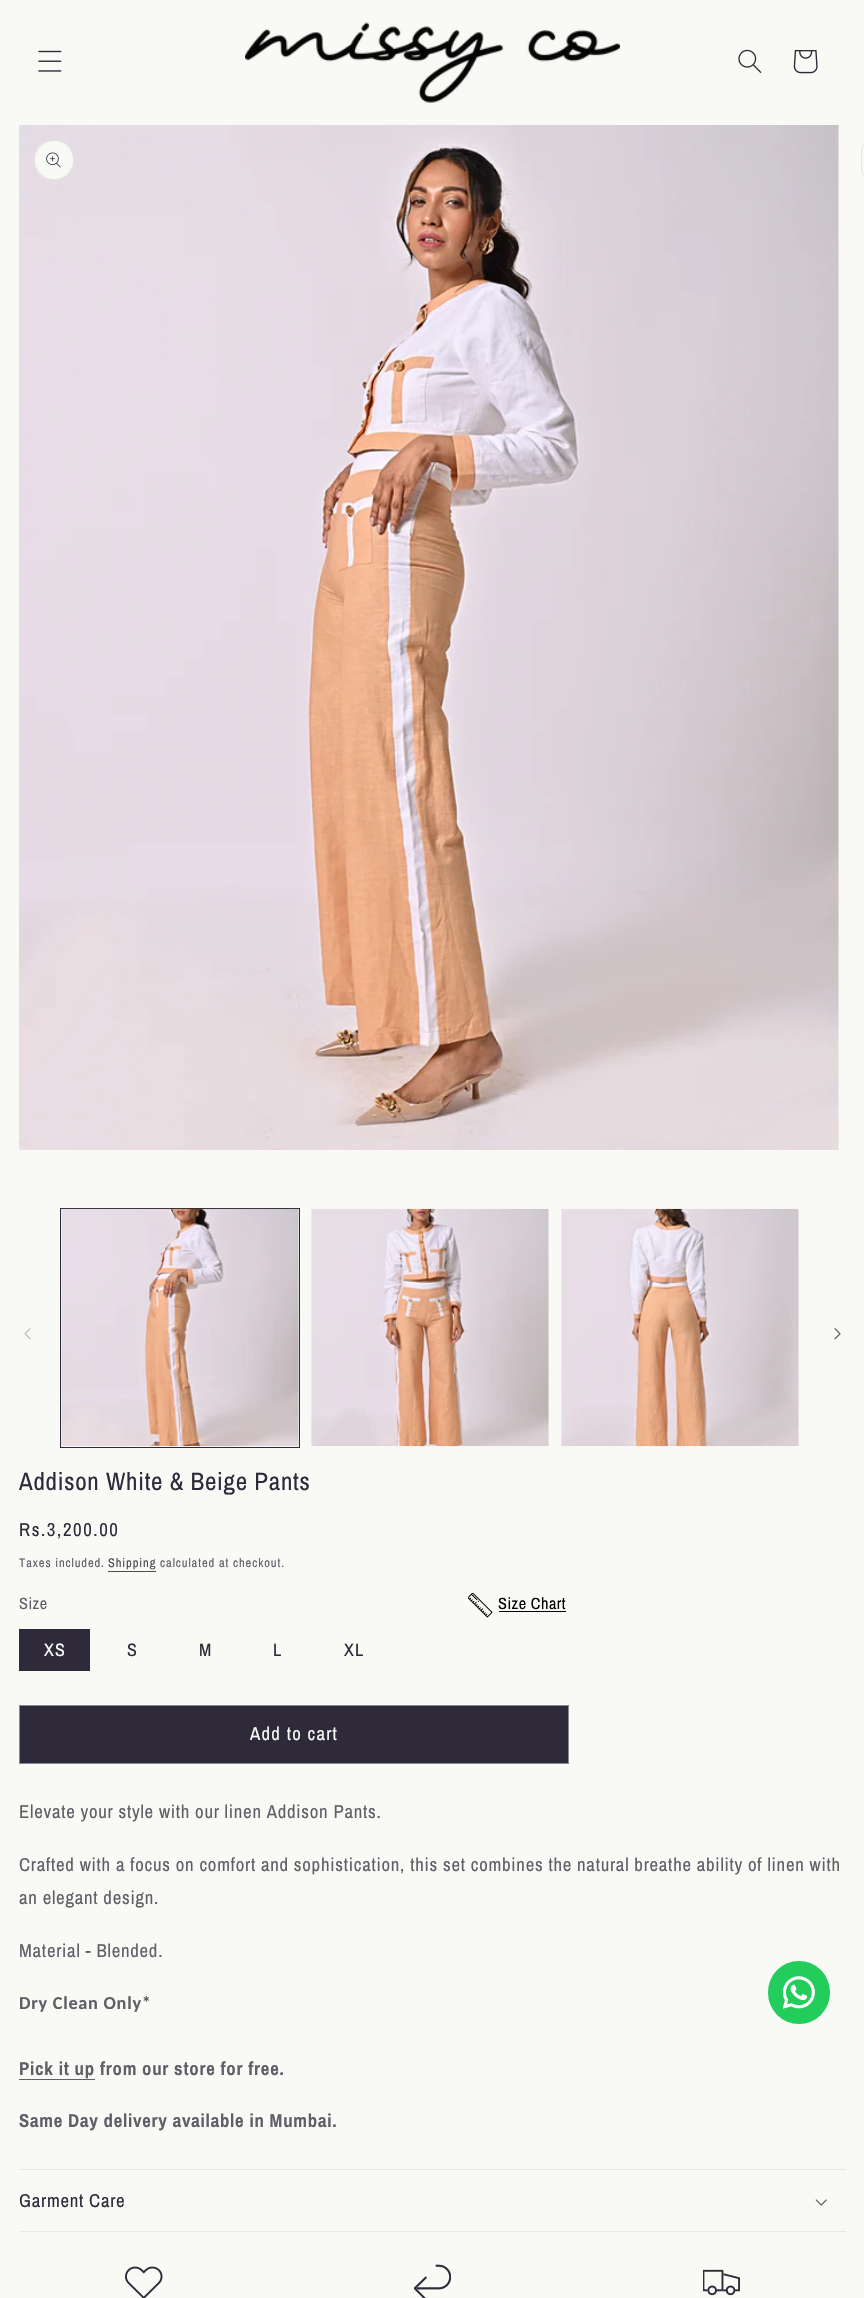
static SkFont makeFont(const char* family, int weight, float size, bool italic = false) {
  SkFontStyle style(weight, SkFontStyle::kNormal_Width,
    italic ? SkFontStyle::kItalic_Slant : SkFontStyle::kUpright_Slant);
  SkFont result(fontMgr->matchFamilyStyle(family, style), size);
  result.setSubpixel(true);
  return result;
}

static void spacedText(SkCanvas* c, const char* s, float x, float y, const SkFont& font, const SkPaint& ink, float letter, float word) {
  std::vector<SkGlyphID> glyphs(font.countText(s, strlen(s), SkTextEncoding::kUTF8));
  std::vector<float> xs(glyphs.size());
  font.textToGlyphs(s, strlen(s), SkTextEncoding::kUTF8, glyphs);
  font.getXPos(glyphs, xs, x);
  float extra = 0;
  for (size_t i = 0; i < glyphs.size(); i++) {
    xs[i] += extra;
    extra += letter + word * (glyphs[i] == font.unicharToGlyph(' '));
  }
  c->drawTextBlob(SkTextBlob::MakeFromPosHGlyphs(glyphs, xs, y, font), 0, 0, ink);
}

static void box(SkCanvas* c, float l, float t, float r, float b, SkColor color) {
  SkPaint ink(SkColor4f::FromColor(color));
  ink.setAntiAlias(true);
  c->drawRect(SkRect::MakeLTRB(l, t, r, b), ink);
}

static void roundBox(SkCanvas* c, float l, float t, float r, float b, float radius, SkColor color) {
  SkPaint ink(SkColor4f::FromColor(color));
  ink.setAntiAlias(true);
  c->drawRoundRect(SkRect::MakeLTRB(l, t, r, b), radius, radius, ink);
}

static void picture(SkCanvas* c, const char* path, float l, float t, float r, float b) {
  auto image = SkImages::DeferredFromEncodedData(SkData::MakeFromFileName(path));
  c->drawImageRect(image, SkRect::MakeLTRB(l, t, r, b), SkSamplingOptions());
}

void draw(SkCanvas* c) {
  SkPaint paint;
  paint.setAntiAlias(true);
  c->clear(0xfff9f9f5);
  picture(c, "img_01.png", 38, 50, 62, 72);
  picture(c, "img_02.png", 245, 22, 620, 103);
  picture(c, "img_03.png", 738, 49, 762, 73);
  picture(c, "img_04.png", 793, 50, 818, 74);
  picture(c, "img_05.png", 19, 125, 839, 1150);
  paint.setColor(0xfff9f9f5);
  c->drawCircle(54, 160, 20, paint);
  paint.setStyle(SkPaint::kStroke_Style);
  paint.setStrokeWidth(1);
  paint.setColor(0x1a2e2a39);
  c->drawCircle(54, 160, 19.5f, paint);
  picture(c, "img_06.png", 46, 152, 61, 168);
  paint.setColor(0xffe5e4e2);
  c->drawRoundRect(SkRect::MakeLTRB(861.5f, 140.5f, 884.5f, 179.5f), 19.5f, 19.5f, paint);
  picture(c, "img_07.png", 24, 1328, 31, 1340);
  paint.setColor(0xff2e2a39);
  c->drawRect(SkRect::MakeLTRB(60.5f, 1208.5f, 299.5f, 1447.5f), paint);
  picture(c, "img_08.png", 61, 1208, 299, 1447);
  picture(c, "img_09.png", 311, 1208, 549, 1447);
  picture(c, "img_10.png", 561, 1208, 799, 1447);
  picture(c, "img_11.png", 834, 1328, 841, 1340);
  SkFont face1 = makeFont("Archivo Narrow", 400, 25);
  paint.setStyle(SkPaint::kFill_Style);
  spacedText(c, "Addison White & Beige Pants", 19, 1490, face1, paint, 0.75f, 0);
  SkFont face2 = makeFont("Archivo Narrow", 400, 18.75f);
  spacedText(c, "Rs.3,200.00", 19, 1536, face2, paint, 1.6f, 0);
  SkFont face3 = makeFont("Archivo Narrow", 400, 12.5f);
  paint.setColor(0xff615e68);
  spacedText(c, "Taxes included.", 19, 1567, face3, paint, 0.9f, 0);
  paint.setColor(0xff4c4955);
  spacedText(c, "Shipping", 108, 1567, face3, paint, 0.9f, 0);
  box(c, 108, 1571, 156, 1572, 0xff4c4955);
  paint.setColor(0xff615e68);
  spacedText(c, "calculated at checkout.", 160, 1567, face3, paint, 0.9f, 0);
  SkFont face4 = makeFont("Archivo Narrow", 400, 16.25f);
  spacedText(c, "Size", 19, 1609, face4, paint, 0.5f, 0);
  picture(c, "img_12.png", 468, 1593, 493, 1618);
  paint.setColor(0xff000000);
  spacedText(c, "Size Chart", 498, 1609, face4, paint, 0.5f, 0);
  box(c, 499, 1611, 566, 1612, 0xff000000);
  box(c, 19, 1629, 90, 1671, 0xff2e2a39);
  SkFont face5 = makeFont("Archivo Narrow", 400, 18);
  paint.setColor(0xfff9f9f5);
  spacedText(c, "XS", 44, 1656, face5, paint, 1.25f, 0);
  paint.setColor(0xff2e2a39);
  spacedText(c, "S", 127, 1656, face5, paint, 1.25f, 0);
  spacedText(c, "M", 199, 1656, face5, paint, 1.25f, 0);
  spacedText(c, "L", 273, 1656, face5, paint, 1.25f, 0);
  spacedText(c, "XL", 344, 1656, face5, paint, 1.25f, 0);
  box(c, 20, 1706, 568, 1763, 0xff2e2a39);
  paint.setStyle(SkPaint::kStroke_Style);
  paint.setColor(0xff89878e);
  c->drawRect(SkRect::MakeLTRB(19.5f, 1705.5f, 568.5f, 1763.5f), paint);
  paint.setStyle(SkPaint::kFill_Style);
  paint.setColor(0xfff9f9f5);
  spacedText(c, "Add to cart", 250, 1740, face2, paint, 1.25f, 0);
  paint.setColor(0xff615e68);
  spacedText(c, "Elevate your style with our linen Addison Pants.", 19, 1818, face2, paint, 0.75f, 0);
  spacedText(c, "Crafted with a focus on comfort and sophistication, this set combines the natural breathe ability of linen with", 19, 1871, face2, paint, 0.75f, 0);
  spacedText(c, "an elegant design.", 19, 1904, face2, paint, 0.75f, 0);
  spacedText(c, "Material - Blended.", 19, 1957, face2, paint, 0.75f, 0);
  SkFont face6 = makeFont("Carlito", 700, 18.25f);
  spacedText(c, "Dry Clean Only*", 19, 2009, face6, paint, 0.75f, 0);
  SkFont face7 = makeFont("Archivo Narrow", 700, 18.75f);
  spacedText(c, "Pick it up from our store for free.", 19, 2075, face7, paint, 0.75f, 0);
  box(c, 19, 2079, 95, 2080, 0xff615e68);
  spacedText(c, "Same Day delivery available in Mumbai.", 19, 2127, face7, paint, 0.75f, 0);
  box(c, 19, 2169, 846, 2170, 0xffe9e8e6);
  box(c, 19, 2231, 846, 2232, 0xffe9e8e6);
  paint.setColor(0xff2e2a39);
  spacedText(c, "Garment Care", 19, 2207, face2, paint, 0.75f, 0);
  picture(c, "img_13.png", 815, 2199, 827, 2206);
  picture(c, "img_14.png", 125, 2266, 163, 2298);
  picture(c, "img_15.png", 414, 2264, 451, 2298);
  picture(c, "img_16.png", 703, 2269, 740, 2296);
  roundBox(c, 768, 1961, 830, 2024, 31, 0xff22cd5b);
  picture(c, "img_17.png", 783, 1976, 815, 2009);
}
